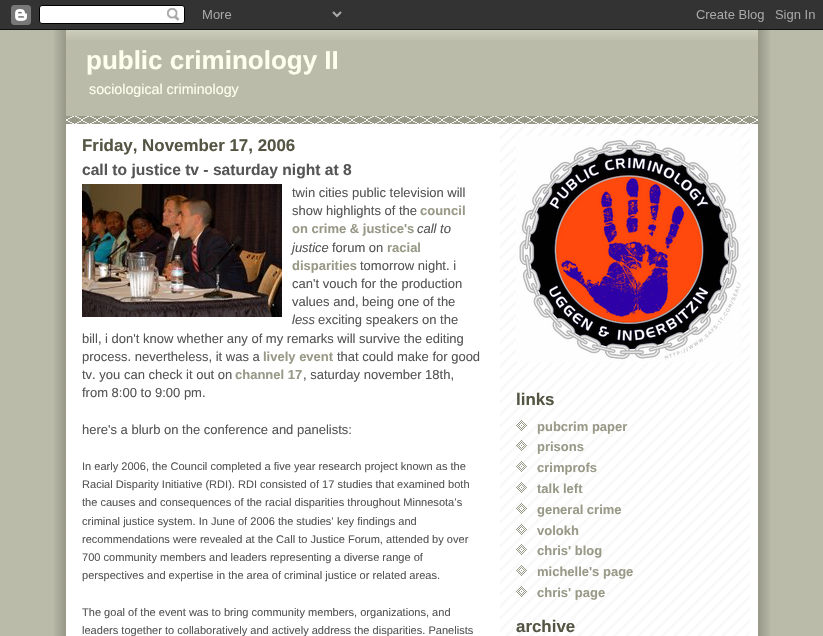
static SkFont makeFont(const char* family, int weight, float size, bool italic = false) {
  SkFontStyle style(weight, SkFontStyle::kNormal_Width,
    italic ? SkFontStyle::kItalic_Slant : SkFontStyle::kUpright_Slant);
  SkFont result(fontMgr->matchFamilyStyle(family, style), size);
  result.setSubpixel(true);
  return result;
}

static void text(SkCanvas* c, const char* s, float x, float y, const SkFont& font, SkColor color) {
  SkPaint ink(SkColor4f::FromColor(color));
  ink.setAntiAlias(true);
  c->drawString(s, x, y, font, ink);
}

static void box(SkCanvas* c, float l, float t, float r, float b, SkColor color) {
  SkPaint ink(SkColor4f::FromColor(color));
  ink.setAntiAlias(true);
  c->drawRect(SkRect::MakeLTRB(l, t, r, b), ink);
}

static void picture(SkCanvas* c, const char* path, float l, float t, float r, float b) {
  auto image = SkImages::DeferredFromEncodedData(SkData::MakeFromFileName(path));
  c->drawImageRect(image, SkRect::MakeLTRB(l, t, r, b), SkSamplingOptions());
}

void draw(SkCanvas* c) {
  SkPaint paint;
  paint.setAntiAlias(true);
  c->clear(0xffbbbbaa);
  picture(c, "img_01.png", 54, 30, 770, 636);
  picture(c, "img_02.png", 0, 0, 823, 30);
  box(c, 66, 124, 758, 636, 0xffffffff);
  picture(c, "img_03.png", 500, 124, 750, 636);
  box(c, 66, 40, 758, 116, 0xffbbbbaa);
  picture(c, "img_04.png", 66, 116, 758, 124);
  picture(c, "img_05.png", 66, 30, 758, 40);
  SkFont face1 = makeFont("Liberation Sans", 700, 26);
  text(c, "public criminology II", 86, 69, face1, 0xffffffee);
  SkFont face2 = makeFont("Liberation Sans", 400, 14.25f);
  text(c, "sociological criminology", 89, 94, face2, 0xffffffee);
  SkFont face3 = makeFont("Liberation Sans", 700, 16.9f);
  text(c, "Friday, November 17, 2006", 82, 151, face3, 0xff555544);
  SkFont face4 = makeFont("Liberation Sans", 700, 15.6f);
  text(c, "call to justice tv - saturday night at 8", 82, 175, face4, 0xff555555);
  picture(c, "img_06.png", 82, 184, 282, 317);
  SkFont face5 = makeFont("Liberation Sans", 400, 13);
  text(c, "twin cities public television will", 292, 197, face5, 0xff555555);
  text(c, "show highlights of the", 292, 215, face5, 0xff555555);
  SkFont face6 = makeFont("Liberation Sans", 700, 13);
  text(c, "council", 420, 215, face6, 0xff999988);
  text(c, "on crime & justice's", 292, 233, face6, 0xff999988);
  SkFont face7 = makeFont("Liberation Sans", 400, 13, true);
  text(c, "call to", 417, 233, face7, 0xff555555);
  text(c, "justice", 292, 252, face7, 0xff555555);
  text(c, "forum on", 332, 252, face5, 0xff555555);
  text(c, "racial", 387, 252, face6, 0xff999988);
  text(c, "disparities", 292, 270, face6, 0xff999988);
  text(c, "tomorrow night. i", 360, 270, face5, 0xff555555);
  text(c, "can't vouch for the production", 292, 288, face5, 0xff555555);
  text(c, "values and, being one of the", 292, 306, face5, 0xff555555);
  text(c, "less", 292, 324, face7, 0xff555555);
  text(c, "exciting speakers on the", 318, 324, face5, 0xff555555);
  text(c, "bill, i don't know whether any of my remarks will survive the editing", 82, 343, face5, 0xff555555);
  text(c, "process. nevertheless, it was a", 82, 361, face5, 0xff555555);
  text(c, "lively event", 263, 361, face6, 0xff999988);
  text(c, "that could make for good", 337, 361, face5, 0xff555555);
  text(c, "tv. you can check it out on", 82, 379, face5, 0xff555555);
  text(c, "channel 17", 235, 379, face6, 0xff999988);
  text(c, ", saturday november 18th,", 303, 379, face5, 0xff555555);
  text(c, "from 8:00 to 9:00 pm.", 82, 397, face5, 0xff555555);
  text(c, "here's a blurb on the conference and panelists:", 82, 434, face5, 0xff555555);
  SkFont face8 = makeFont("Liberation Sans", 400, 11.05f);
  text(c, "In early 2006, the Council completed a five year research project known as the", 82, 470, face8, 0xff555555);
  text(c, "Racial Disparity Initiative (RDI). RDI consisted of 17 studies that examined both", 82, 488, face8, 0xff555555);
  text(c, "the causes and consequences of the racial disparities throughout Minnesota’s", 82, 506, face8, 0xff555555);
  text(c, "criminal justice system. In June of 2006 the studies’ key findings and", 82, 525, face8, 0xff555555);
  text(c, "recommendations were revealed at the Call to Justice Forum, attended by over", 82, 543, face8, 0xff555555);
  text(c, "700 community members and leaders representing a diverse range of", 82, 561, face8, 0xff555555);
  text(c, "perspectives and expertise in the area of criminal justice or related areas.", 82, 579, face8, 0xff555555);
  text(c, "The goal of the event was to bring community members, organizations, and", 82, 616, face8, 0xff555555);
  text(c, "leaders together to collaboratively and actively address the disparities. Panelists", 82, 634, face8, 0xff555555);
  picture(c, "img_07.png", 516, 136, 742, 362);
  text(c, "links", 516, 405, face3, 0xff555544);
  picture(c, "img_08.png", 516, 420, 527, 431);
  text(c, "pubcrim paper", 537, 431, face6, 0xff999988);
  picture(c, "img_09.png", 516, 440, 527, 451);
  text(c, "prisons", 537, 451, face6, 0xff999988);
  picture(c, "img_10.png", 516, 461, 527, 472);
  text(c, "crimprofs", 537, 472, face6, 0xff999988);
  picture(c, "img_11.png", 516, 482, 527, 493);
  text(c, "talk left", 537, 493, face6, 0xff999988);
  picture(c, "img_12.png", 516, 503, 527, 514);
  text(c, "general crime", 537, 514, face6, 0xff999988);
  picture(c, "img_09.png", 516, 524, 527, 535);
  text(c, "volokh", 537, 535, face6, 0xff999988);
  picture(c, "img_13.png", 516, 544, 527, 555);
  text(c, "chris' blog", 537, 555, face6, 0xff999988);
  picture(c, "img_14.png", 516, 565, 527, 576);
  text(c, "michelle's page", 537, 576, face6, 0xff999988);
  picture(c, "img_15.png", 516, 586, 527, 597);
  text(c, "chris' page", 537, 597, face6, 0xff999988);
  text(c, "archive", 516, 632, face3, 0xff555544);
}
